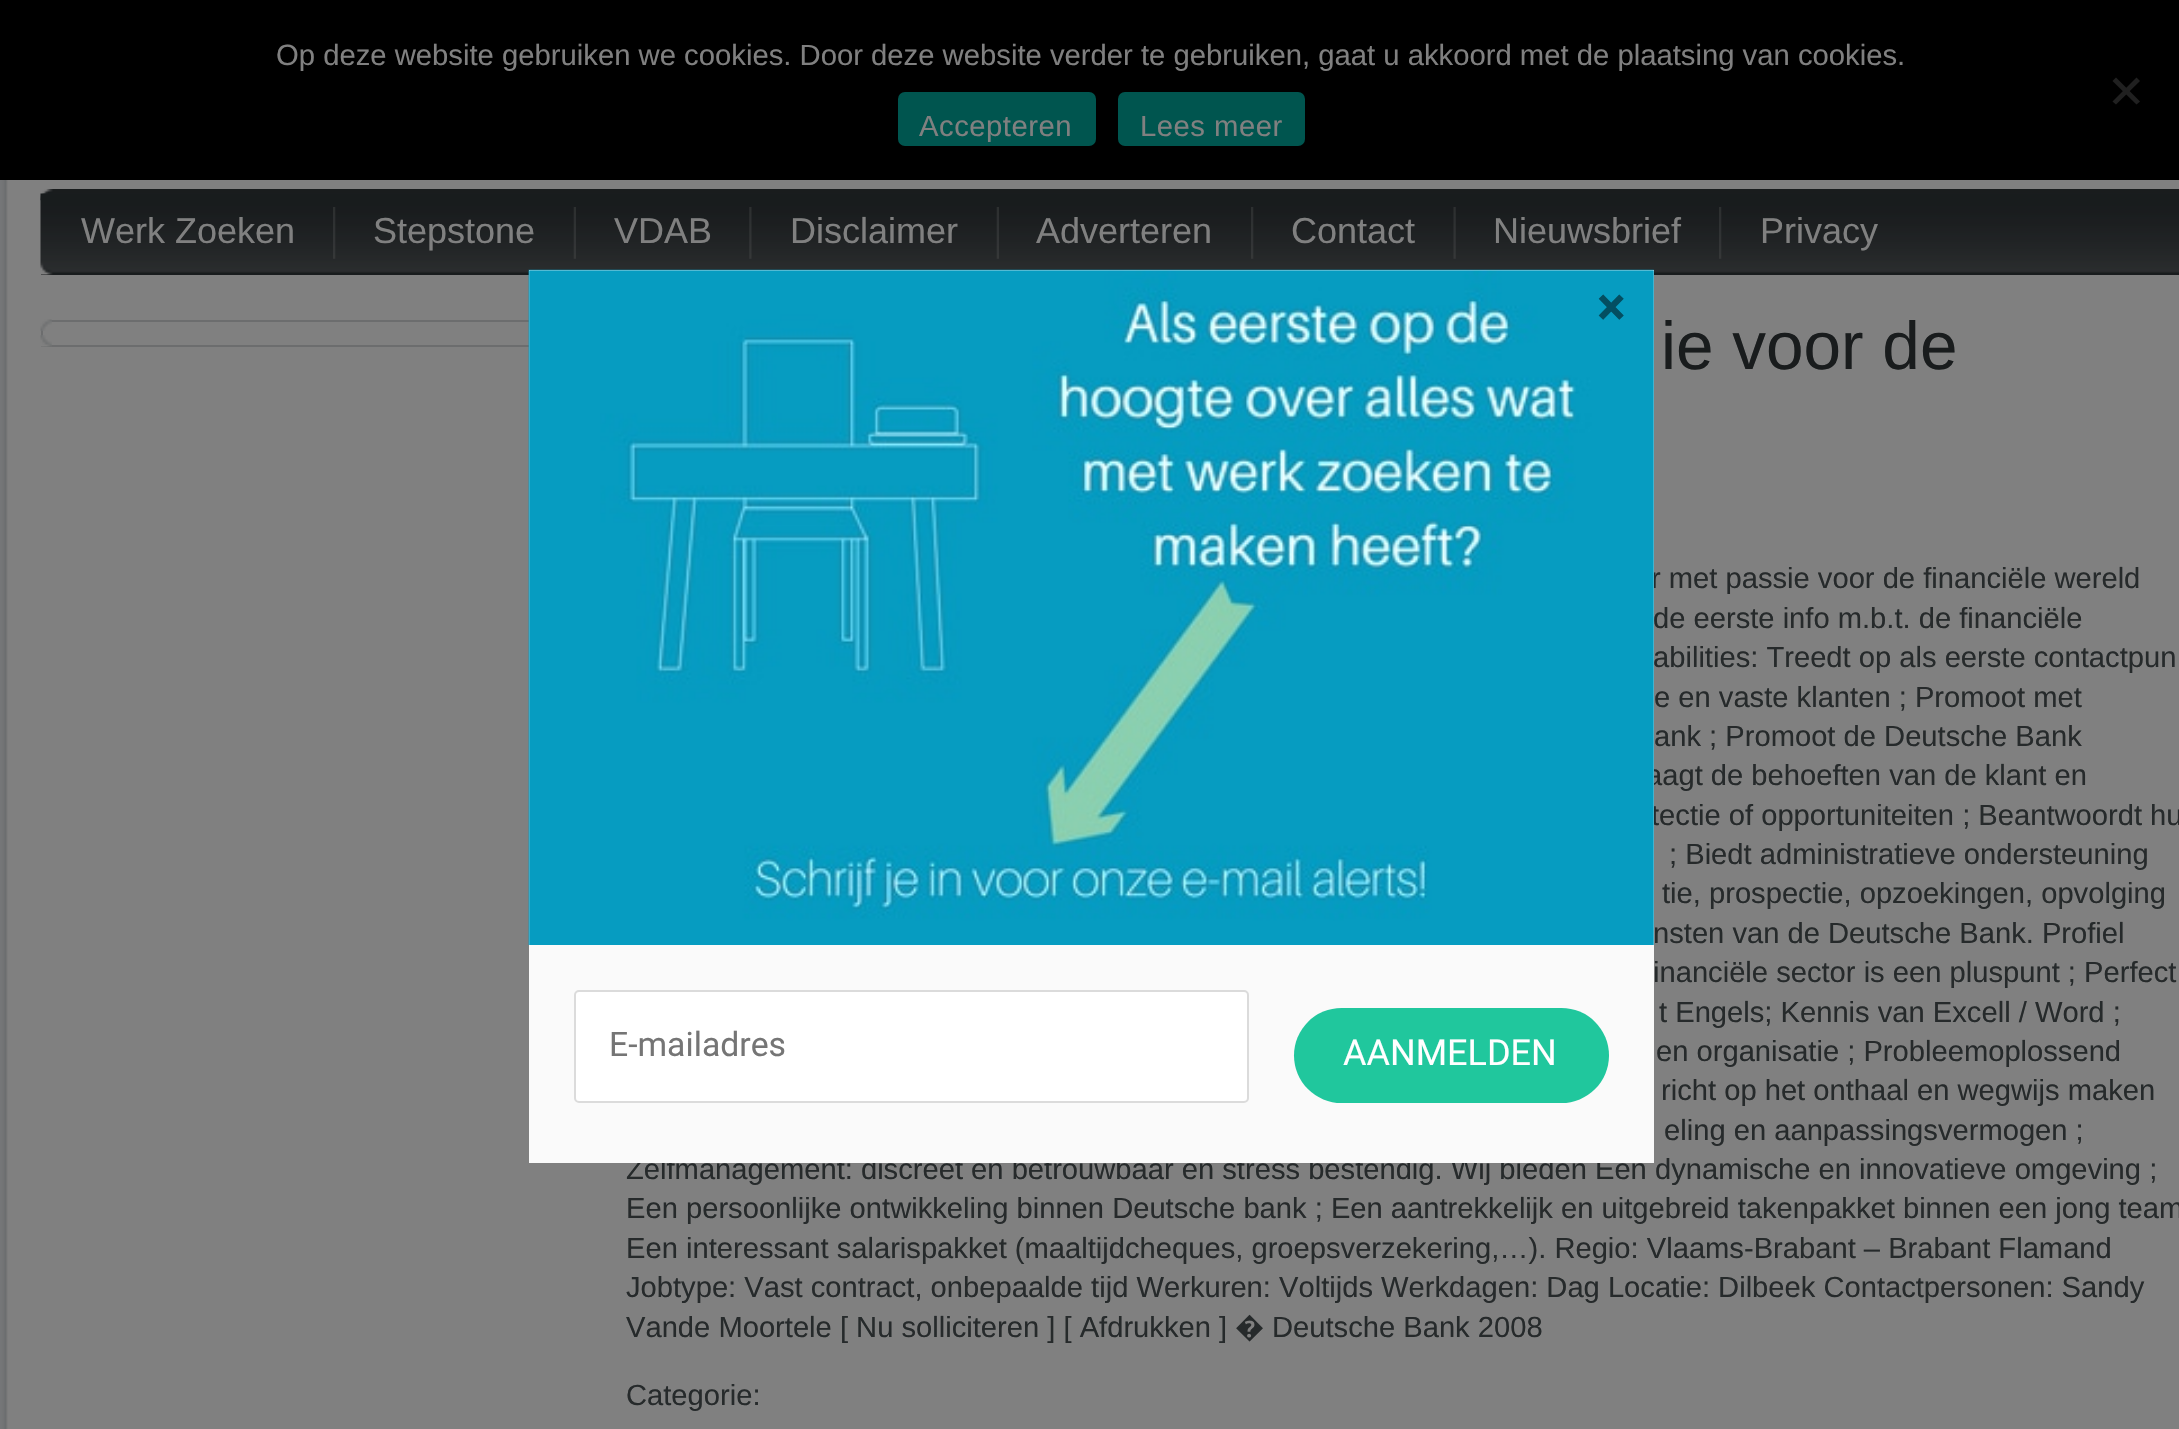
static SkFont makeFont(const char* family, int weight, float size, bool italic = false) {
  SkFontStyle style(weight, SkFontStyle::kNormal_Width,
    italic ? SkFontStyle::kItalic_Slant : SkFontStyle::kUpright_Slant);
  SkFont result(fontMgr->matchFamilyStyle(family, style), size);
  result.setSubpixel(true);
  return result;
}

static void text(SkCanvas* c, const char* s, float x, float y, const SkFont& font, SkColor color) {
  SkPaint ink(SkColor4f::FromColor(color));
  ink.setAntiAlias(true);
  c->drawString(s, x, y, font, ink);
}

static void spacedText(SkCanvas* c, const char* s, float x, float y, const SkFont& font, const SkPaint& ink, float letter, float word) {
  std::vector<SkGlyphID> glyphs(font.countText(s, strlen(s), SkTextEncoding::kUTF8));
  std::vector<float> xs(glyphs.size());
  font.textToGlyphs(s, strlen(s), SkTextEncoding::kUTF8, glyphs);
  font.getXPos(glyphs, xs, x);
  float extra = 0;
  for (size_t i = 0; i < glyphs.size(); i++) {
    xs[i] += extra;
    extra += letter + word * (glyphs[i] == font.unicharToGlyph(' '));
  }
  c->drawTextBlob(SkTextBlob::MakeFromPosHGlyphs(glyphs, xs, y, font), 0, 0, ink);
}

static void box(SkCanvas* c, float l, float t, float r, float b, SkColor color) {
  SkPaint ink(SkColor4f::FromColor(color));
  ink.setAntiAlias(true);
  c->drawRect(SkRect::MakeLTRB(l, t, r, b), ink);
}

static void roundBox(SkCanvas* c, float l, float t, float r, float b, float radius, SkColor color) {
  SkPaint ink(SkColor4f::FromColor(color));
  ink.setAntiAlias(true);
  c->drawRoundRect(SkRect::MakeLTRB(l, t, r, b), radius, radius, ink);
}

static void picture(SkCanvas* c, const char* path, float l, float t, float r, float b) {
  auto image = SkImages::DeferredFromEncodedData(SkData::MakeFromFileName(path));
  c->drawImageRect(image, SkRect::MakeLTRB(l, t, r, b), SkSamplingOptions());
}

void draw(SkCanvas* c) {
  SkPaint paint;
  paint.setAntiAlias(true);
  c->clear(0xffffffff);
  box(c, 0, 0, 2179, 180, 0xff000000);
  SkFont face1 = makeFont("Liberation Sans", 400, 29.25f);
  text(c, "Op deze website gebruiken we cookies. Door deze website verder te gebruiken, gaat u akkoord met de plaatsing van cookies.", 276, 65, face1, 0xff808080);
  paint.setColor(0xff202020);
  c->drawPath(SkPathBuilder().moveTo(2136.5f, 77.5f).lineTo(2140, 81).lineTo(2116, 104.5f).lineTo(2112.5f, 101.5f).close().detach(), paint);
  c->drawPath(SkPathBuilder().moveTo(2112.5f, 81).lineTo(2116, 77.5f).lineTo(2140, 101.5f).lineTo(2136.5f, 104.5f).close().detach(), paint);
  roundBox(c, 898, 92, 1096, 146, 7, 0xff00554f);
  paint.setColor(0xff808080);
  spacedText(c, "Accepteren", 919, 136, face1, paint, 0.5f, 0);
  roundBox(c, 1118, 92, 1305, 146, 7, 0xff00554f);
  spacedText(c, "Lees meer", 1140, 136, face1, paint, 0.5f, 0);
  picture(c, "img_01.png", 0, 180, 2179, 1429);
  box(c, 41, 189, 2179, 275, 0xff191c1d);
  picture(c, "img_02.png", 40, 189, 53, 201);
  picture(c, "img_03.png", 40, 193, 2179, 275);
  SkFont face2 = makeFont("Liberation Sans", 400, 36);
  text(c, "Werk Zoeken", 81, 243, face2, 0xff808080);
  picture(c, "img_04.png", 333, 207, 336, 259);
  text(c, "Stepstone", 373, 243, face2, 0xff808080);
  picture(c, "img_05.png", 573, 207, 576, 259);
  text(c, "VDAB", 614, 243, face2, 0xff808080);
  picture(c, "img_06.png", 749, 207, 752, 259);
  text(c, "Disclaimer", 790, 243, face2, 0xff808080);
  picture(c, "img_05.png", 996, 207, 999, 259);
  text(c, "Adverteren", 1036, 243, face2, 0xff808080);
  picture(c, "img_04.png", 1251, 207, 1254, 259);
  text(c, "Contact", 1291, 243, face2, 0xff808080);
  picture(c, "img_07.png", 1453, 207, 1456, 259);
  text(c, "Nieuwsbrief", 1493, 243, face2, 0xff808080);
  picture(c, "img_04.png", 1719, 207, 1722, 259);
  text(c, "Privacy", 1760, 243, face2, 0xff808080);
  paint.setStyle(SkPaint::kStroke_Style);
  paint.setStrokeWidth(2);
  paint.setColor(0xff6c6d6e);
  c->drawRect(SkRect::MakeLTRB(42, 321, 562, 346), paint);
  picture(c, "img_08.png", 40, 319, 52, 331);
  picture(c, "img_09.png", 40, 335, 52, 347);
  SkFont face3 = makeFont("Liberation Sans", 400, 67.5f);
  text(c, "ie voor de", 1661, 369, face3, 0xff191c1d);
  SkFont face4 = makeFont("Liberation Sans", 400, 29.15f);
  text(c, "r met passie voor de financiële wereld", 1651, 588, face4, 0xff262a2b);
  text(c, "de eerste info m.b.t. de financiële", 1653, 628, face4, 0xff262a2b);
  text(c, "abilities: Treedt op als eerste contactpun", 1653, 667, face4, 0xff262a2b);
  text(c, "e en vaste klanten ; Promoot met", 1654, 707, face4, 0xff262a2b);
  text(c, "ank ; Promoot de Deutsche Bank", 1654, 746, face4, 0xff262a2b);
  text(c, "aagt de behoeften van de klant en", 1646, 785, face4, 0xff262a2b);
  text(c, "tectie of opportuniteiten ; Beantwoordt hu", 1651, 825, face4, 0xff262a2b);
  text(c, "; Biedt administratieve ondersteuning", 1669, 864, face4, 0xff262a2b);
  text(c, "tie, prospectie, opzoekingen, opvolging", 1662, 903, face4, 0xff262a2b);
  text(c, "nsten van de Deutsche Bank. Profiel", 1653, 943, face4, 0xff262a2b);
  text(c, "inanciële sector is een pluspunt ; Perfect", 1653, 982, face4, 0xff262a2b);
  text(c, "t Engels; Kennis van Excell / Word ;", 1659, 1022, face4, 0xff262a2b);
  text(c, "en organisatie ; Probleemoplossend", 1656, 1061, face4, 0xff262a2b);
  text(c, "richt op het onthaal en wegwijs maken", 1661, 1100, face4, 0xff262a2b);
  text(c, "eling en aanpassingsvermogen ;", 1664, 1140, face4, 0xff262a2b);
  text(c, "Zelfmanagement: discreet en betrouwbaar en stress bestendig. Wij bieden Een dynamische en innovatieve omgeving ;", 626, 1179, face4, 0xff262a2b);
  text(c, "Een persoonlijke ontwikkeling binnen Deutsche bank ; Een aantrekkelijk en uitgebreid takenpakket binnen een jong team", 626, 1218, face4, 0xff262a2b);
  text(c, "Een interessant salarispakket (maaltijdcheques, groepsverzekering,…). Regio: Vlaams-Brabant – Brabant Flamand", 626, 1258, face4, 0xff262a2b);
  text(c, "Jobtype: Vast contract, onbepaalde tijd Werkuren: Voltijds Werkdagen: Dag Locatie: Dilbeek Contactpersonen: Sandy", 626, 1297, face4, 0xff262a2b);
  text(c, "Vande Moortele [ Nu solliciteren ] [ Afdrukken ]", 626, 1337, face4, 0xff262a2b);
  SkFont face5 = makeFont("Noto Sans", 400, 29.15f);
  text(c, "�", 1235, 1337, face5, 0xff262a2b);
  text(c, "Deutsche Bank 2008", 1272, 1337, face4, 0xff262a2b);
  text(c, "Categorie:", 626, 1405, face4, 0xff262a2b);
  box(c, 529, 270, 1654, 1163, 0xfffafafa);
  picture(c, "img_10.png", 528, 269, 1654, 945);
  SkFont face6 = makeFont("Roboto", 700, 54);
  text(c, "×", 1597, 325, face6, 0xff034e61);
  paint.setStyle(SkPaint::kFill_Style);
  paint.setColor(0xffffffff);
  c->drawRoundRect(SkRect::MakeLTRB(575, 991, 1248, 1102), 4, 4, paint);
  paint.setStyle(SkPaint::kStroke_Style);
  paint.setColor(0xffdbdbdb);
  c->drawRoundRect(SkRect::MakeLTRB(575, 991, 1248, 1102), 4, 4, paint);
  SkFont face7 = makeFont("Roboto", 400, 33.75f);
  text(c, "E-mailadres", 609, 1056, face7, 0xff757575);
  roundBox(c, 1294, 1008, 1609, 1103, 47.5f, 0xff20c79d);
  SkFont face8 = makeFont("Roboto", 400, 36);
  text(c, "AANMELDEN", 1343, 1065, face8, 0xffffffff);
}
